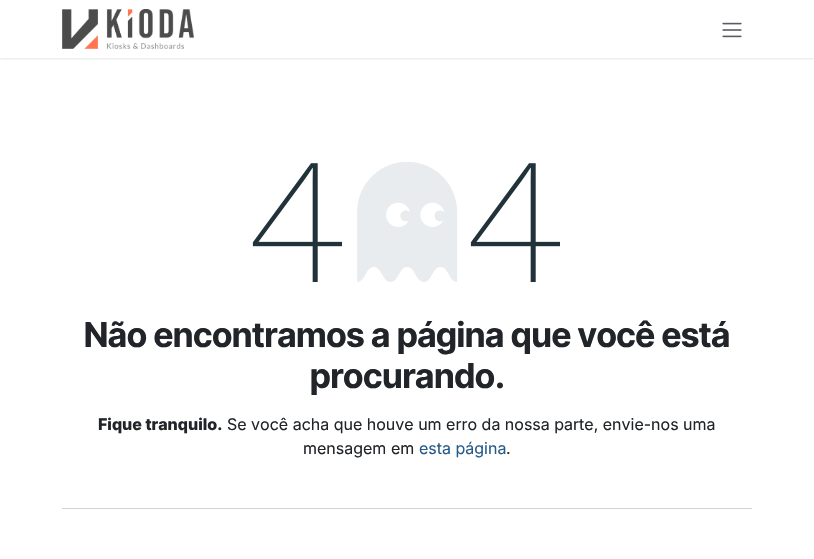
static SkFont makeFont(const char* family, int weight, float size, bool italic = false) {
  SkFontStyle style(weight, SkFontStyle::kNormal_Width,
    italic ? SkFontStyle::kItalic_Slant : SkFontStyle::kUpright_Slant);
  SkFont result(fontMgr->matchFamilyStyle(family, style), size);
  result.setSubpixel(true);
  return result;
}

static void text(SkCanvas* c, const char* s, float x, float y, const SkFont& font, SkColor color) {
  SkPaint ink(SkColor4f::FromColor(color));
  ink.setAntiAlias(true);
  c->drawString(s, x, y, font, ink);
}

static void box(SkCanvas* c, float l, float t, float r, float b, SkColor color) {
  SkPaint ink(SkColor4f::FromColor(color));
  ink.setAntiAlias(true);
  c->drawRect(SkRect::MakeLTRB(l, t, r, b), ink);
}

static void picture(SkCanvas* c, const char* path, float l, float t, float r, float b) {
  auto image = SkImages::DeferredFromEncodedData(SkData::MakeFromFileName(path));
  c->drawImageRect(image, SkRect::MakeLTRB(l, t, r, b), SkSamplingOptions());
}

void draw(SkCanvas* c) {
  SkPaint paint;
  paint.setAntiAlias(true);
  c->clear(0xffffffff);
  c->save();
  c->clipRect(SkRect::MakeLTRB(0, 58, 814, 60));
  paint.setColor(0x1a000000);
  paint.setMaskFilter(SkMaskFilter::MakeBlur(kNormal_SkBlurStyle, 1.5f));
  c->drawRect(SkRect::MakeLTRB(0, 1, 814, 59), paint);
  paint.setMaskFilter(nullptr);
  c->restore();
  picture(c, "img_01.png", 62, 9, 194, 49);
  picture(c, "img_02.png", 722, 22, 742, 38);
  picture(c, "img_03.png", 252, 162, 560, 282);
  SkFont face1 = makeFont("Inter Tight", 700, 34.25f);
  text(c, "Não encontramos a página que você está", 84, 347, face1, 0xff212529);
  text(c, "procurando.", 310, 388, face1, 0xff212529);
  SkFont face2 = makeFont("Inter", 800, 16);
  text(c, "Fique tranquilo.", 98, 430, face2, 0xff212529);
  SkFont face3 = makeFont("Inter", 400, 16);
  text(c, "Se você acha que houve um erro da nossa parte, envie-nos uma", 227, 430, face3, 0xff212529);
  text(c, "mensagem em", 303, 454, face3, 0xff212529);
  text(c, "esta página", 419, 454, face3, 0xff265a87);
  text(c, ".", 506, 454, face3, 0xff212529);
  box(c, 62, 508, 752, 509, 0xffced4da);
}
